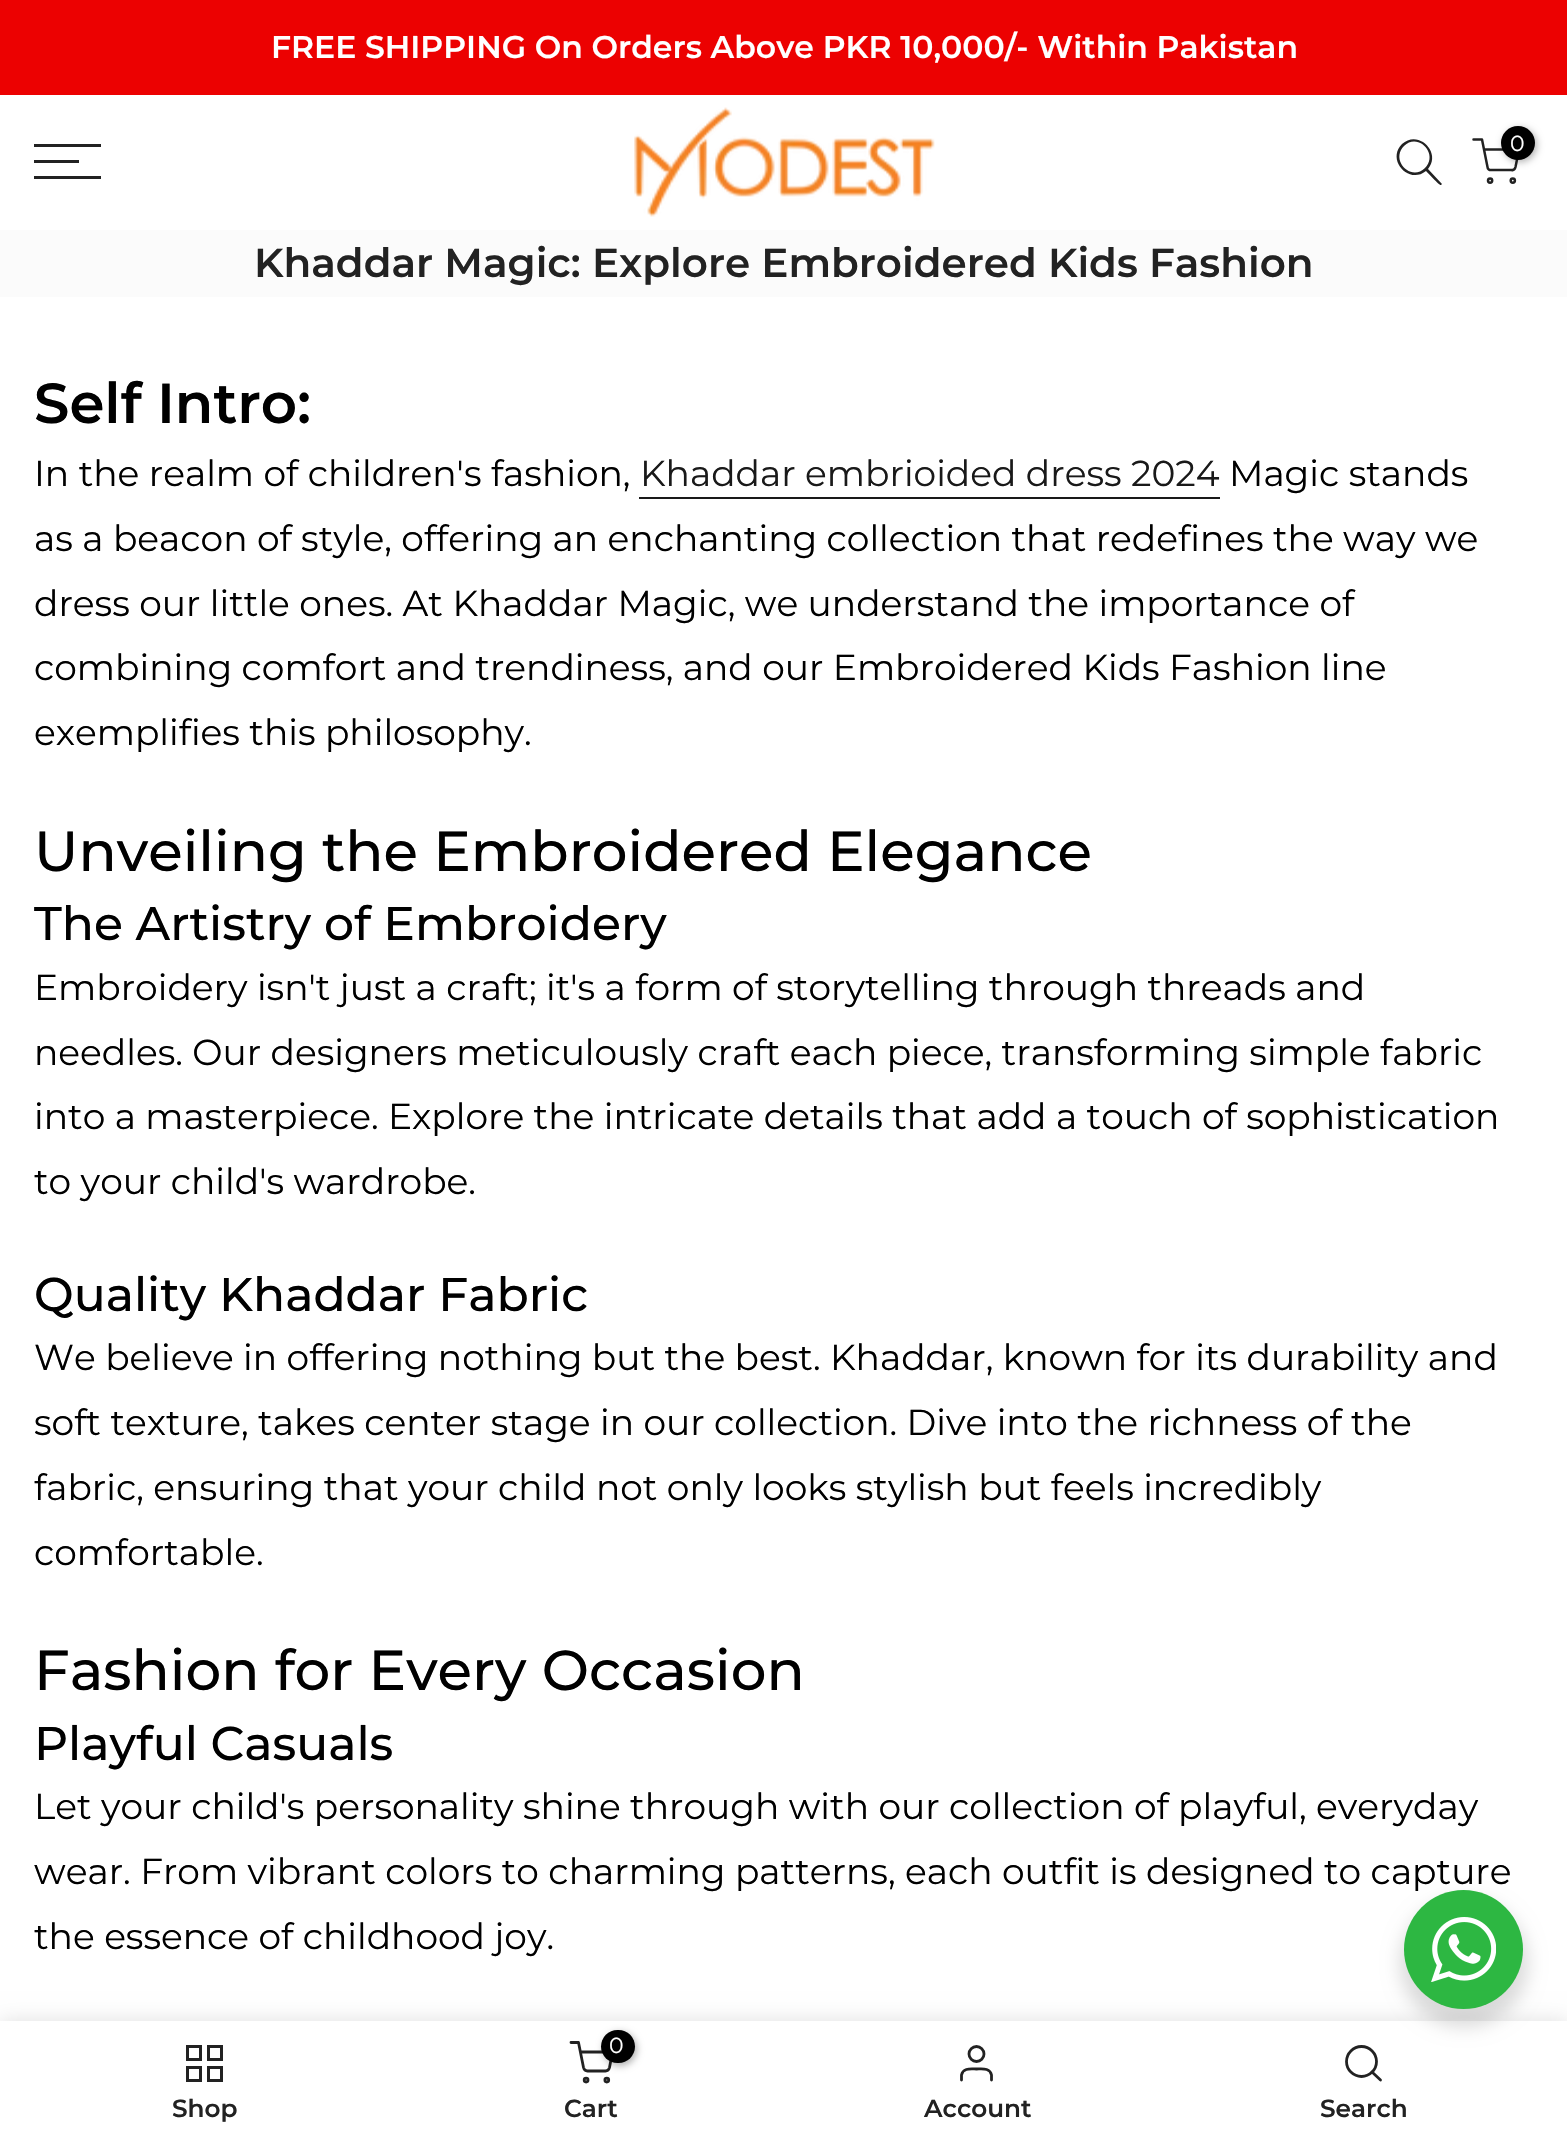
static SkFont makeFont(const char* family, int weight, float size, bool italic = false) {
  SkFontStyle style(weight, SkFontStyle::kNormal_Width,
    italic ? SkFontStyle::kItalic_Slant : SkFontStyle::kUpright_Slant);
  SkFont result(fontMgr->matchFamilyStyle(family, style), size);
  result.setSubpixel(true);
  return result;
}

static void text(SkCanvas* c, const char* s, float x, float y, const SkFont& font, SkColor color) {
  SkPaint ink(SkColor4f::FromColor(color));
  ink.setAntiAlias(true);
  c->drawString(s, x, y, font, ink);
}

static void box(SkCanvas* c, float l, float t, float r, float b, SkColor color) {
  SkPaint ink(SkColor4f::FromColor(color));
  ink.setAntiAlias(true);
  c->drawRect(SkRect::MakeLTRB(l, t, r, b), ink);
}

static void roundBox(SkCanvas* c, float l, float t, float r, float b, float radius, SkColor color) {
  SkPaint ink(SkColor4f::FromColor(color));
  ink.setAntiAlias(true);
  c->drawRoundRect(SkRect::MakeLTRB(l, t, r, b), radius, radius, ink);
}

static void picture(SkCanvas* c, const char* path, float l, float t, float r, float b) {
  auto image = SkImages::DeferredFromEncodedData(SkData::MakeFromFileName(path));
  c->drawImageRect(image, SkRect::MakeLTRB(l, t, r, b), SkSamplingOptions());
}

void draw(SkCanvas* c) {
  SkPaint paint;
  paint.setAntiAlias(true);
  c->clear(0xffffffff);
  box(c, 0, 0, 1567, 95, 0xffec0101);
  SkFont face1 = makeFont("Montserrat", 600, 31.5f);
  text(c, "FREE SHIPPING On Orders Above PKR 10,000/- Within Pakistan", 271, 58, face1, 0xffffffff);
  box(c, 34, 144, 101, 147, 0xff222222);
  box(c, 34, 160, 79, 163, 0xff222222);
  box(c, 34, 176, 101, 179, 0xff222222);
  picture(c, "img_01.png", 634, 107, 935, 217);
  paint.setColor(0xff222222);
  c->drawPath(SkPathBuilder(SkPathFillType::kEvenOdd).moveTo(1425, 168).cubicTo(1411, 182, 1390, 160, 1404, 146).cubicTo(1418, 132, 1439, 154, 1425, 168).close().moveTo(1426, 171).cubicTo(1409, 185, 1386, 160, 1402, 144).cubicTo(1418, 129, 1442, 152, 1428, 169).lineTo(1442, 184).lineTo(1441, 185).cubicTo(1440, 186, 1428, 173, 1426, 171).close().detach(), paint);
  paint.setStyle(SkPaint::kStroke_Style);
  paint.setStrokeWidth(2.5f);
  paint.setStrokeCap(SkPaint::kRound_Cap);
  paint.setStrokeJoin(SkPaint::kRound_Join);
  c->drawPath(SkPathBuilder().moveTo(1473.5f, 139.5f).lineTo(1482, 139.5f).lineTo(1487.5f, 167).cubicTo(1487.5f, 169, 1489.5f, 170.5f, 1491.5f, 170).lineTo(1511.5f, 170).cubicTo(1513.5f, 170.5f, 1515, 169, 1515.5f, 167).lineTo(1519, 149.5f).lineTo(1484, 149.5f).detach(), paint);
  paint.setStyle(SkPaint::kFill_Style);
  paint.setColor(0x4d000000);
  paint.setMaskFilter(SkMaskFilter::MakeBlur(kNormal_SkBlurStyle, 3.5f));
  c->drawRoundRect(SkRect::MakeLTRB(1503, 128, 1537, 162), 17, 17, paint);
  paint.setMaskFilter(nullptr);
  paint.setColor(0xff000000);
  c->drawCircle(1518, 143, 17, paint);
  SkFont face2 = makeFont("Montserrat", 400, 22);
  text(c, "0", 1510, 151, face2, 0xffffffff);
  paint.setStyle(SkPaint::kStroke_Style);
  paint.setStrokeCap(SkPaint::kButt_Cap);
  paint.setStrokeJoin(SkPaint::kMiter_Join);
  paint.setColor(0xff222222);
  c->drawCircle(1490.1f, 180.6f, 2.1f, paint);
  c->drawCircle(1512.8f, 180.6f, 2.1f, paint);
  box(c, 0, 230, 1567, 297, 0xfffbfbfb);
  SkFont face3 = makeFont("Montserrat", 600, 40.5f);
  text(c, "Khaddar Magic: Explore Embroidered Kids Fashion", 254, 277, face3, 0xff222222);
  SkFont face4 = makeFont("Montserrat", 600, 56.25f);
  text(c, "Self Intro:", 34, 423, face4, 0xff000000);
  SkFont face5 = makeFont("Montserrat", 400, 36);
  text(c, "In the realm of children's fashion,", 34, 486, face5, 0xff000000);
  text(c, "Khaddar embrioided dress 2024", 640, 486, face5, 0xff191919);
  box(c, 639, 497, 1220, 499, 0xff191919);
  text(c, "Magic stands", 1229, 486, face5, 0xff000000);
  text(c, "as a beacon of style, offering an enchanting collection that redefines the way we", 34, 551, face5, 0xff000000);
  text(c, "dress our little ones. At Khaddar Magic, we understand the importance of", 34, 616, face5, 0xff000000);
  text(c, "combining comfort and trendiness, and our Embroidered Kids Fashion line", 34, 680, face5, 0xff000000);
  text(c, "exemplifies this philosophy.", 34, 745, face5, 0xff000000);
  SkFont face6 = makeFont("Montserrat", 500, 56.25f);
  text(c, "Unveiling the Embroidered Elegance", 34, 871, face6, 0xff000000);
  SkFont face7 = makeFont("Montserrat", 500, 47.25f);
  text(c, "The Artistry of Embroidery", 34, 940, face7, 0xff000000);
  text(c, "Embroidery isn't just a craft; it's a form of storytelling through threads and", 34, 1000, face5, 0xff000000);
  text(c, "needles. Our designers meticulously craft each piece, transforming simple fabric", 34, 1065, face5, 0xff000000);
  text(c, "into a masterpiece. Explore the intricate details that add a touch of sophistication", 34, 1129, face5, 0xff000000);
  text(c, "to your child's wardrobe.", 34, 1194, face5, 0xff000000);
  text(c, "Quality Khaddar Fabric", 34, 1311, face7, 0xff000000);
  text(c, "We believe in offering nothing but the best. Khaddar, known for its durability and", 34, 1370, face5, 0xff000000);
  text(c, "soft texture, takes center stage in our collection. Dive into the richness of the", 34, 1435, face5, 0xff000000);
  text(c, "fabric, ensuring that your child not only looks stylish but feels incredibly", 34, 1500, face5, 0xff000000);
  text(c, "comfortable.", 34, 1565, face5, 0xff000000);
  text(c, "Fashion for Every Occasion", 34, 1690, face6, 0xff000000);
  text(c, "Playful Casuals", 34, 1760, face7, 0xff000000);
  text(c, "Let your child's personality shine through with our collection of playful, everyday", 34, 1819, face5, 0xff000000);
  text(c, "wear. From vibrant colors to charming patterns, each outfit is designed to capture", 34, 1884, face5, 0xff000000);
  text(c, "the essence of childhood joy.", 34, 1949, face5, 0xff000000);
  paint.setStyle(SkPaint::kFill_Style);
  paint.setColor(0x1f000000);
  paint.setMaskFilter(SkMaskFilter::MakeBlur(kNormal_SkBlurStyle, 10));
  c->drawRect(SkRect::MakeLTRB(0, 2021, 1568, 2144), paint);
  paint.setMaskFilter(nullptr);
  box(c, 0, 2021, 1567, 2144, 0xffffffff);
  paint.setStyle(SkPaint::kStroke_Style);
  paint.setStrokeWidth(2.8f);
  paint.setColor(0xff222222);
  c->drawCircle(1361.5f, 2061.5f, 15, paint);
  paint.setStyle(SkPaint::kFill_Style);
  paint.setColor(0x24000000);
  paint.setMaskFilter(SkMaskFilter::MakeBlur(kNormal_SkBlurStyle, 9));
  c->drawRoundRect(SkRect::MakeLTRB(1400, 1899, 1528, 2027), 64, 64, paint);
  paint.setMaskFilter(nullptr);
  paint.setColor(0xff2db742);
  c->drawCircle(1463.5f, 1949.5f, 59.5f, paint);
  picture(c, "img_02.png", 1431, 1917, 1496, 1982);
  paint.setStyle(SkPaint::kStroke_Style);
  paint.setStrokeWidth(3);
  paint.setColor(0xff222222);
  c->drawRect(SkRect::MakeLTRB(187.5f, 2046.5f, 200.5f, 2059.5f), paint);
  c->drawRect(SkRect::MakeLTRB(208.5f, 2046.5f, 221.5f, 2059.5f), paint);
  c->drawRect(SkRect::MakeLTRB(187.5f, 2067.5f, 200.5f, 2080.5f), paint);
  c->drawRect(SkRect::MakeLTRB(208.5f, 2067.5f, 221.5f, 2080.5f), paint);
  SkFont face8 = makeFont("Montserrat", 600, 24.75f);
  text(c, "Shop", 172, 2117, face8, 0xff222222);
  paint.setStrokeWidth(2.8f);
  paint.setStrokeCap(SkPaint::kRound_Cap);
  paint.setStrokeJoin(SkPaint::kRound_Join);
  c->drawPath(SkPathBuilder().moveTo(571, 2042.5f).lineTo(578.5f, 2042.5f).lineTo(583.5f, 2067.5f).cubicTo(584, 2069.5f, 585.5f, 2071, 587.5f, 2071).lineTo(605.5f, 2071).cubicTo(607.5f, 2071, 609, 2069.5f, 609.5f, 2067.5f).lineTo(612.5f, 2052).lineTo(580.5f, 2052).detach(), paint);
  paint.setStrokeCap(SkPaint::kButt_Cap);
  paint.setStrokeJoin(SkPaint::kMiter_Join);
  c->drawCircle(606.8f, 2080.1f, 1.9f, paint);
  paint.setStyle(SkPaint::kFill_Style);
  paint.setColor(0x4d000000);
  paint.setMaskFilter(SkMaskFilter::MakeBlur(kNormal_SkBlurStyle, 3.5f));
  c->drawRoundRect(SkRect::MakeLTRB(603, 2032, 637, 2066), 17, 17, paint);
  paint.setMaskFilter(nullptr);
  roundBox(c, 601, 2030, 635, 2063, 16.5f, 0xff000000);
  text(c, "0", 609, 2053, face2, 0xffffffff);
  paint.setStyle(SkPaint::kStroke_Style);
  paint.setColor(0xff222222);
  c->drawCircle(586.1f, 2080.1f, 1.9f, paint);
  text(c, "Cart", 564, 2117, face8, 0xff222222);
  c->drawCircle(976.5f, 2054, 7.5f, paint);
  paint.setStrokeCap(SkPaint::kRound_Cap);
  paint.setStrokeJoin(SkPaint::kRound_Join);
  c->drawPath(SkPathBuilder().moveTo(991.5f, 2080).lineTo(991.5f, 2075).cubicTo(990, 2067.5f, 982, 2069, 976.5f, 2069).cubicTo(971, 2069, 963, 2067.5f, 961.5f, 2075).lineTo(961.5f, 2080).detach(), paint);
  text(c, "Account", 924, 2117, face8, 0xff222222);
  c->drawPath(SkPathBuilder().moveTo(1380.5f, 2080).lineTo(1372, 2072).detach(), paint);
  text(c, "Search", 1320, 2117, face8, 0xff222222);
}
